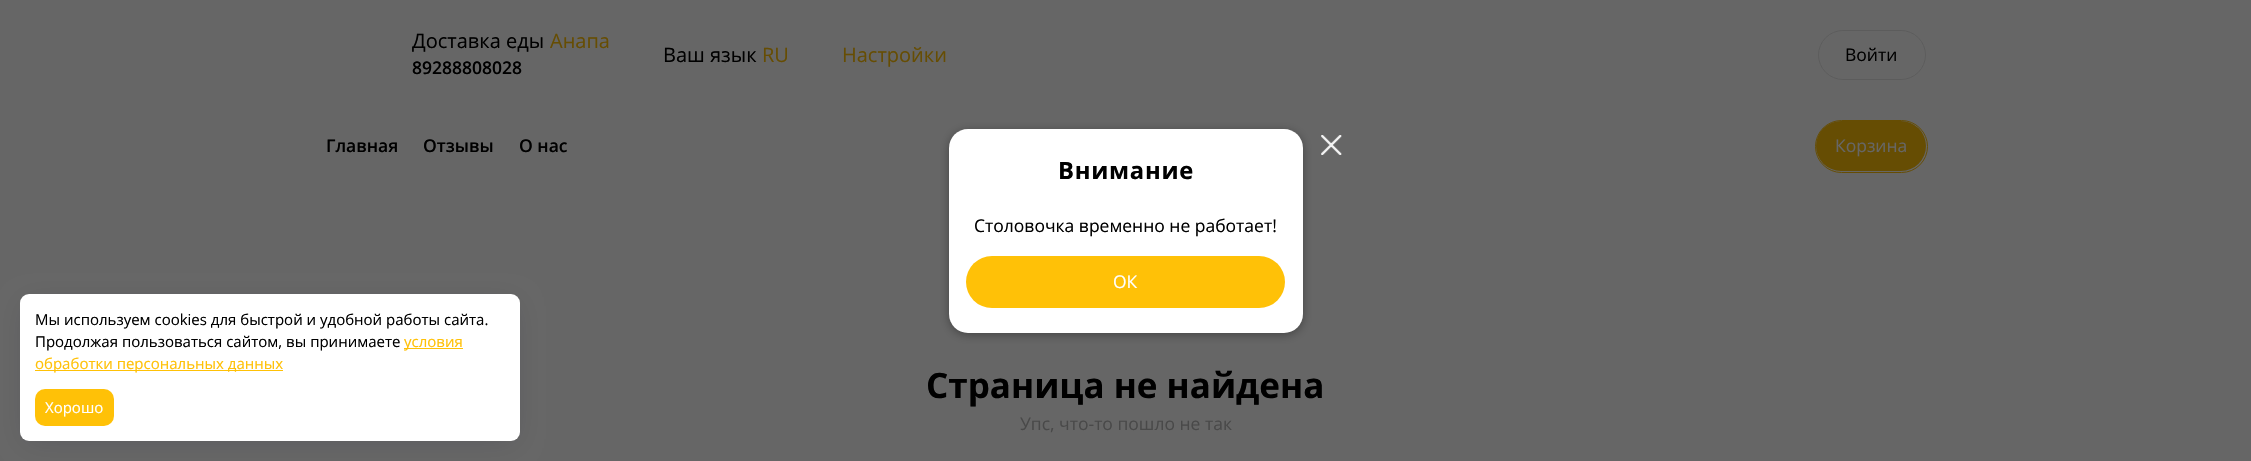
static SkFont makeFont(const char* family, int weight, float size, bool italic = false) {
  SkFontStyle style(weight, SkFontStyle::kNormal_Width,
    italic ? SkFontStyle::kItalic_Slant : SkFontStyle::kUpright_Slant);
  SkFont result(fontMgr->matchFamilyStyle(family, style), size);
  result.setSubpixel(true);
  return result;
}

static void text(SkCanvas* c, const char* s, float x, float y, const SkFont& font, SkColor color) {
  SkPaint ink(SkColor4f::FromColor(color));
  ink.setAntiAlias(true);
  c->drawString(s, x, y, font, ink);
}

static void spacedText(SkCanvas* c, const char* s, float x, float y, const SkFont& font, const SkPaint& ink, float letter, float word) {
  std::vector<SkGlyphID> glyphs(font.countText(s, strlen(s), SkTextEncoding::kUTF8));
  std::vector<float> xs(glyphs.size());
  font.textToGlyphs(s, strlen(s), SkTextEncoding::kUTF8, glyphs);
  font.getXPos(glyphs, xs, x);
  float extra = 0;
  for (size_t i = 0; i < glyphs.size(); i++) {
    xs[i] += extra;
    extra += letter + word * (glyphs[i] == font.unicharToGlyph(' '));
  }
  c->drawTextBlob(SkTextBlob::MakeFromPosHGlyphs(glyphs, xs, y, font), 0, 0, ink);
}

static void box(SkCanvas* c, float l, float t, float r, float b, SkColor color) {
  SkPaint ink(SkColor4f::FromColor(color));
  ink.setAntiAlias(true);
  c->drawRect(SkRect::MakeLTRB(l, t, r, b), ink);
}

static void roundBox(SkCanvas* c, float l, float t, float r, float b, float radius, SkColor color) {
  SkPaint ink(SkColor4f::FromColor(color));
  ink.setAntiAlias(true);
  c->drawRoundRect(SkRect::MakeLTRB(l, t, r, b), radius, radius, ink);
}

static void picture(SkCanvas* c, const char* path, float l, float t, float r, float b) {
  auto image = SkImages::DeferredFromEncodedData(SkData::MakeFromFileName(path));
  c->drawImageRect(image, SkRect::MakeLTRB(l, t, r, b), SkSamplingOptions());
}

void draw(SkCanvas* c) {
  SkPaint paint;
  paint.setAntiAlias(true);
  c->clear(0xff666666);
  SkFont face1 = makeFont("Open Sans", 400, 20);
  text(c, "Доставка еды", 412, 48, face1, 0xff000000);
  text(c, "Анапа", 550, 48, face1, 0xff664d03);
  SkFont face2 = makeFont("Open Sans", 600, 17.5f);
  text(c, "89288808028", 412, 74, face2, 0xff000000);
  text(c, "Ваш язык", 663, 62, face1, 0xff000000);
  text(c, "RU", 762, 62, face1, 0xff664d03);
  text(c, "Настройки", 842, 62, face1, 0xff664d03);
  paint.setStyle(SkPaint::kStroke_Style);
  paint.setStrokeWidth(1);
  paint.setColor(0xff5c5c5c);
  c->drawRoundRect(SkRect::MakeLTRB(1818.5f, 30.5f, 1925.5f, 79.5f), 24.5f, 24.5f, paint);
  SkFont face3 = makeFont("Open Sans", 400, 17.5f);
  text(c, "Войти", 1845, 61, face3, 0xff000000);
  text(c, "Главная", 326, 152, face2, 0xff000000);
  text(c, "Отзывы", 423, 152, face2, 0xff000000);
  text(c, "О нас", 519, 152, face2, 0xff000000);
  SkFont face4 = makeFont("Open Sans", 700, 35);
  text(c, "Страница не найдена", 926, 398, face4, 0xff000000);
  text(c, "Упс, что-то пошло не так", 1020, 430, face3, 0xff494949);
  paint.setColor(0xff664d03);
  c->drawRoundRect(SkRect::MakeLTRB(1815.5f, 120.5f, 1927.5f, 172.5f), 26, 26, paint);
  roundBox(c, 1816, 121, 1926, 171, 25, 0xff664d03);
  text(c, "Корзина", 1835, 152, face3, 0xff666666);
  paint.setStyle(SkPaint::kFill_Style);
  paint.setColor(0x26060532);
  paint.setMaskFilter(SkMaskFilter::MakeBlur(kNormal_SkBlurStyle, 14));
  c->drawRoundRect(SkRect::MakeLTRB(28, 306, 513, 439), 1, 1, paint);
  paint.setMaskFilter(nullptr);
  roundBox(c, 20, 294, 520, 441, 9, 0xffffffff);
  SkFont face5 = makeFont("Open Sans", 400, 15);
  text(c, "Мы используем cookies для быстрой и удобной работы сайта.", 35, 325, face5, 0xff000000);
  text(c, "Продолжая пользоваться сайтом, вы принимаете", 35, 347, face5, 0xff000000);
  box(c, 404, 348, 463, 349, 0xffffc107);
  text(c, "условия", 404, 347, face5, 0xffffc107);
  box(c, 35, 370, 283, 371, 0xffffc107);
  text(c, "обработки персональных данных", 35, 369, face5, 0xffffc107);
  roundBox(c, 35, 389, 114, 426, 10, 0xffffc107);
  text(c, "Хорошо", 45, 413, face5, 0xffffffff);
  picture(c, "img_01.png", 1321, 135, 1342, 155);
  paint.setColor(0x54000000);
  paint.setMaskFilter(SkMaskFilter::MakeBlur(kNormal_SkBlurStyle, 5));
  c->drawRoundRect(SkRect::MakeLTRB(949, 131, 1303, 335), 19, 19, paint);
  paint.setMaskFilter(nullptr);
  roundBox(c, 949, 129, 1303, 333, 19, 0xffffffff);
  SkFont face6 = makeFont("Open Sans", 700, 23.75f);
  paint.setColor(0xff000000);
  spacedText(c, "Внимание", 1058, 179, face6, paint, 0.75f, 0);
  text(c, "Столовочка временно не работает!", 974, 232, face3, 0xff000000);
  roundBox(c, 966, 256, 1285, 308, 26, 0xffffc107);
  text(c, "ОК", 1113, 288, face3, 0xffffffff);
}
